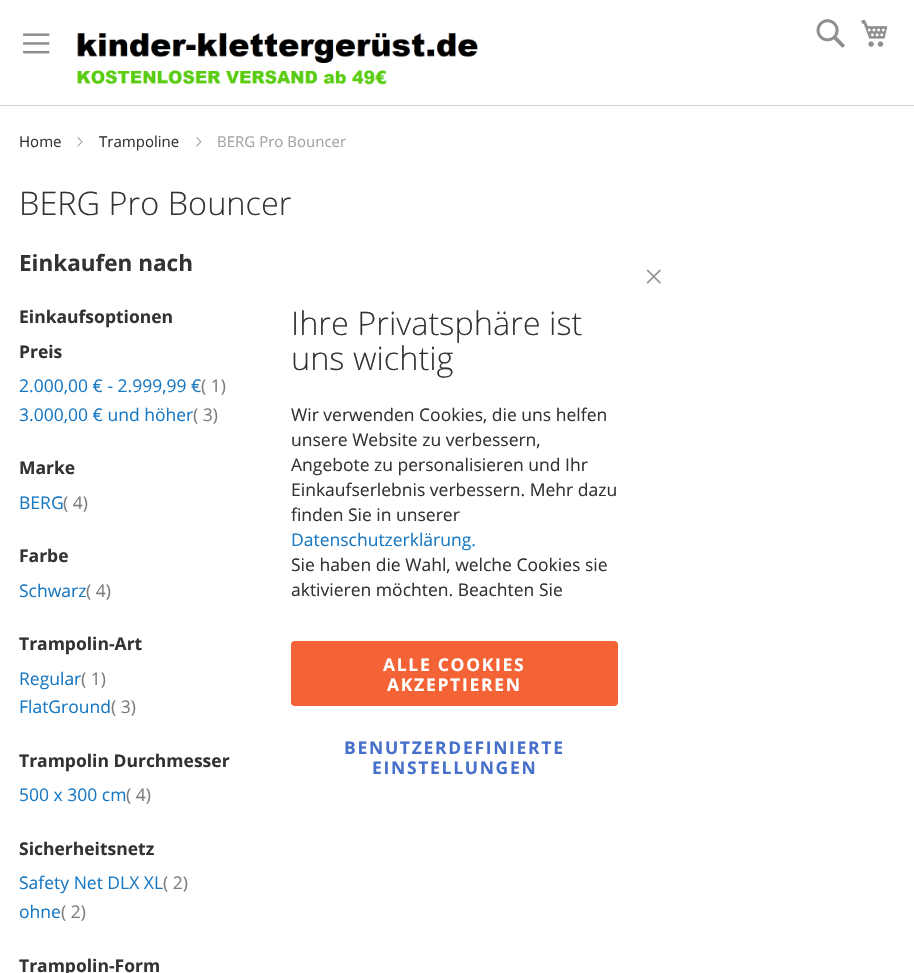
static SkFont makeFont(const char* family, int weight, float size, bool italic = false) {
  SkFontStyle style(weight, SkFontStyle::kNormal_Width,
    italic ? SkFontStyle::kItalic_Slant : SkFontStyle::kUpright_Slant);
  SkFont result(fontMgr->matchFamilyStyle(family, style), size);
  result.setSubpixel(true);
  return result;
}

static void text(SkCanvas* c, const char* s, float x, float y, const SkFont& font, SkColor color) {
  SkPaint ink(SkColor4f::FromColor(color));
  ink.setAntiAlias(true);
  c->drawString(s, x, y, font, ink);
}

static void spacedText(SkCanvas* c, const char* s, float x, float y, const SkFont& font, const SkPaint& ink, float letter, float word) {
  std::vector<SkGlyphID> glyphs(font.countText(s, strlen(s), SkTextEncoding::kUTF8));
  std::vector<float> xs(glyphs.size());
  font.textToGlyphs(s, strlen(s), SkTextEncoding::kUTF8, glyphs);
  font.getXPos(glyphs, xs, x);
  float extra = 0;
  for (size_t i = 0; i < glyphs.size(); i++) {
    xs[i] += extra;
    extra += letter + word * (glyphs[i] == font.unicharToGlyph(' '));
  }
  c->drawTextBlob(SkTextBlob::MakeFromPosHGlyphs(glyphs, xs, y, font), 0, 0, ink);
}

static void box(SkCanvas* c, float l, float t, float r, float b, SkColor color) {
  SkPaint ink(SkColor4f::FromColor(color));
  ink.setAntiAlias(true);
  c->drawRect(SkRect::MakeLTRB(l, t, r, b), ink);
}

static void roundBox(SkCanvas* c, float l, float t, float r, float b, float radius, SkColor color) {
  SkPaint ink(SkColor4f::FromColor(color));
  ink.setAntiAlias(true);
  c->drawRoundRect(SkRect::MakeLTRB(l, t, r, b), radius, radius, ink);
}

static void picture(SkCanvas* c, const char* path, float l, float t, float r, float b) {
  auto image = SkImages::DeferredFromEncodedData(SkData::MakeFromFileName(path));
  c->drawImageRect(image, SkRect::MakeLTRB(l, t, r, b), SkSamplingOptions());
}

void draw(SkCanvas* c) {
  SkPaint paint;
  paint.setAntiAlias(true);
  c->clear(0xffffffff);
  box(c, 0, 105, 914, 106, 0xffd1d1d1);
  picture(c, "img_01.png", 23, 33, 50, 54);
  picture(c, "img_02.png", 77, 33, 478, 85);
  picture(c, "img_03.png", 816, 19, 845, 48);
  picture(c, "img_04.png", 861, 19, 888, 47);
  SkFont face1 = makeFont("Open Sans", 400, 15);
  text(c, "Home", 19, 147, face1, 0xff333333);
  picture(c, "img_05.png", 77, 137, 83, 147);
  text(c, "Trampoline", 99, 147, face1, 0xff333333);
  picture(c, "img_06.png", 196, 137, 202, 147);
  text(c, "BERG Pro Bouncer", 217, 147, face1, 0xffa3a3a3);
  SkFont face2 = makeFont("Open Sans", 300, 32.5f);
  text(c, "BERG Pro Bouncer", 19, 215, face2, 0xff333333);
  SkFont face3 = makeFont("Open Sans", 700, 22.5f);
  text(c, "Einkaufen nach", 19, 271, face3, 0xff333333);
  SkFont face4 = makeFont("Open Sans", 700, 17.5f);
  text(c, "Einkaufsoptionen", 19, 323, face4, 0xff333333);
  text(c, "Preis", 19, 358, face4, 0xff333333);
  SkFont face5 = makeFont("Open Sans", 400, 17.5f);
  text(c, "2.000,00 € - 2.999,99 €", 19, 392, face5, 0xff1979c3);
  text(c, "( 1)", 201, 392, face5, 0xff7d7d7d);
  text(c, "3.000,00 € und höher", 19, 421, face5, 0xff1979c3);
  text(c, "( 3)", 193, 421, face5, 0xff7d7d7d);
  text(c, "Marke", 19, 474, face4, 0xff333333);
  text(c, "BERG", 19, 509, face5, 0xff1979c3);
  text(c, "( 4)", 63, 509, face5, 0xff7d7d7d);
  text(c, "Farbe", 19, 562, face4, 0xff333333);
  text(c, "Schwarz", 19, 597, face5, 0xff1979c3);
  text(c, "( 4)", 86, 597, face5, 0xff7d7d7d);
  text(c, "Trampolin-Art", 19, 650, face4, 0xff333333);
  text(c, "Regular", 19, 685, face5, 0xff1979c3);
  text(c, "( 1)", 81, 685, face5, 0xff7d7d7d);
  text(c, "FlatGround", 19, 713, face5, 0xff1979c3);
  text(c, "( 3)", 111, 713, face5, 0xff7d7d7d);
  text(c, "Trampolin Durchmesser", 19, 767, face4, 0xff333333);
  text(c, "500 x 300 cm", 19, 801, face5, 0xff1979c3);
  text(c, "( 4)", 126, 801, face5, 0xff7d7d7d);
  text(c, "Sicherheitsnetz", 19, 855, face4, 0xff333333);
  text(c, "Safety Net DLX XL", 19, 889, face5, 0xff1979c3);
  text(c, "( 2)", 163, 889, face5, 0xff7d7d7d);
  text(c, "ohne", 19, 918, face5, 0xff1979c3);
  text(c, "( 2)", 61, 918, face5, 0xff7d7d7d);
  text(c, "Trampolin-Form", 19, 972, face4, 0xff333333);
  picture(c, "img_07.png", 646, 269, 661, 284);
  text(c, "Ihre Privatsphäre ist", 291, 335, face2, 0xff333333);
  text(c, "uns wichtig", 291, 370, face2, 0xff333333);
  text(c, "Wir verwenden Cookies, die uns helfen", 291, 421, face5, 0xff333333);
  text(c, "unsere Website zu verbessern,", 291, 446, face5, 0xff333333);
  text(c, "Angebote zu personalisieren und Ihr", 291, 471, face5, 0xff333333);
  text(c, "Einkaufserlebnis verbessern. Mehr dazu", 291, 496, face5, 0xff333333);
  text(c, "finden Sie in unserer", 291, 521, face5, 0xff333333);
  text(c, "Datenschutzerklärung.", 291, 546, face5, 0xff1979c3);
  text(c, "Sie haben die Wahl, welche Cookies sie", 291, 571, face5, 0xff333333);
  text(c, "aktivieren möchten. Beachten Sie", 291, 596, face5, 0xff333333);
  roundBox(c, 291, 641, 618, 706, 4, 0xfff46336);
  paint.setColor(0xffffffff);
  spacedText(c, "ALLE COOKIES", 383, 671, face4, paint, 1.7f, 0);
  spacedText(c, "AKZEPTIEREN", 387, 691, face4, paint, 1.7f, 0);
  paint.setColor(0xff4670c9);
  spacedText(c, "BENUTZERDEFINIERTE", 344, 754, face4, paint, 1.7f, 0);
  spacedText(c, "EINSTELLUNGEN", 372, 774, face4, paint, 1.7f, 0);
}
